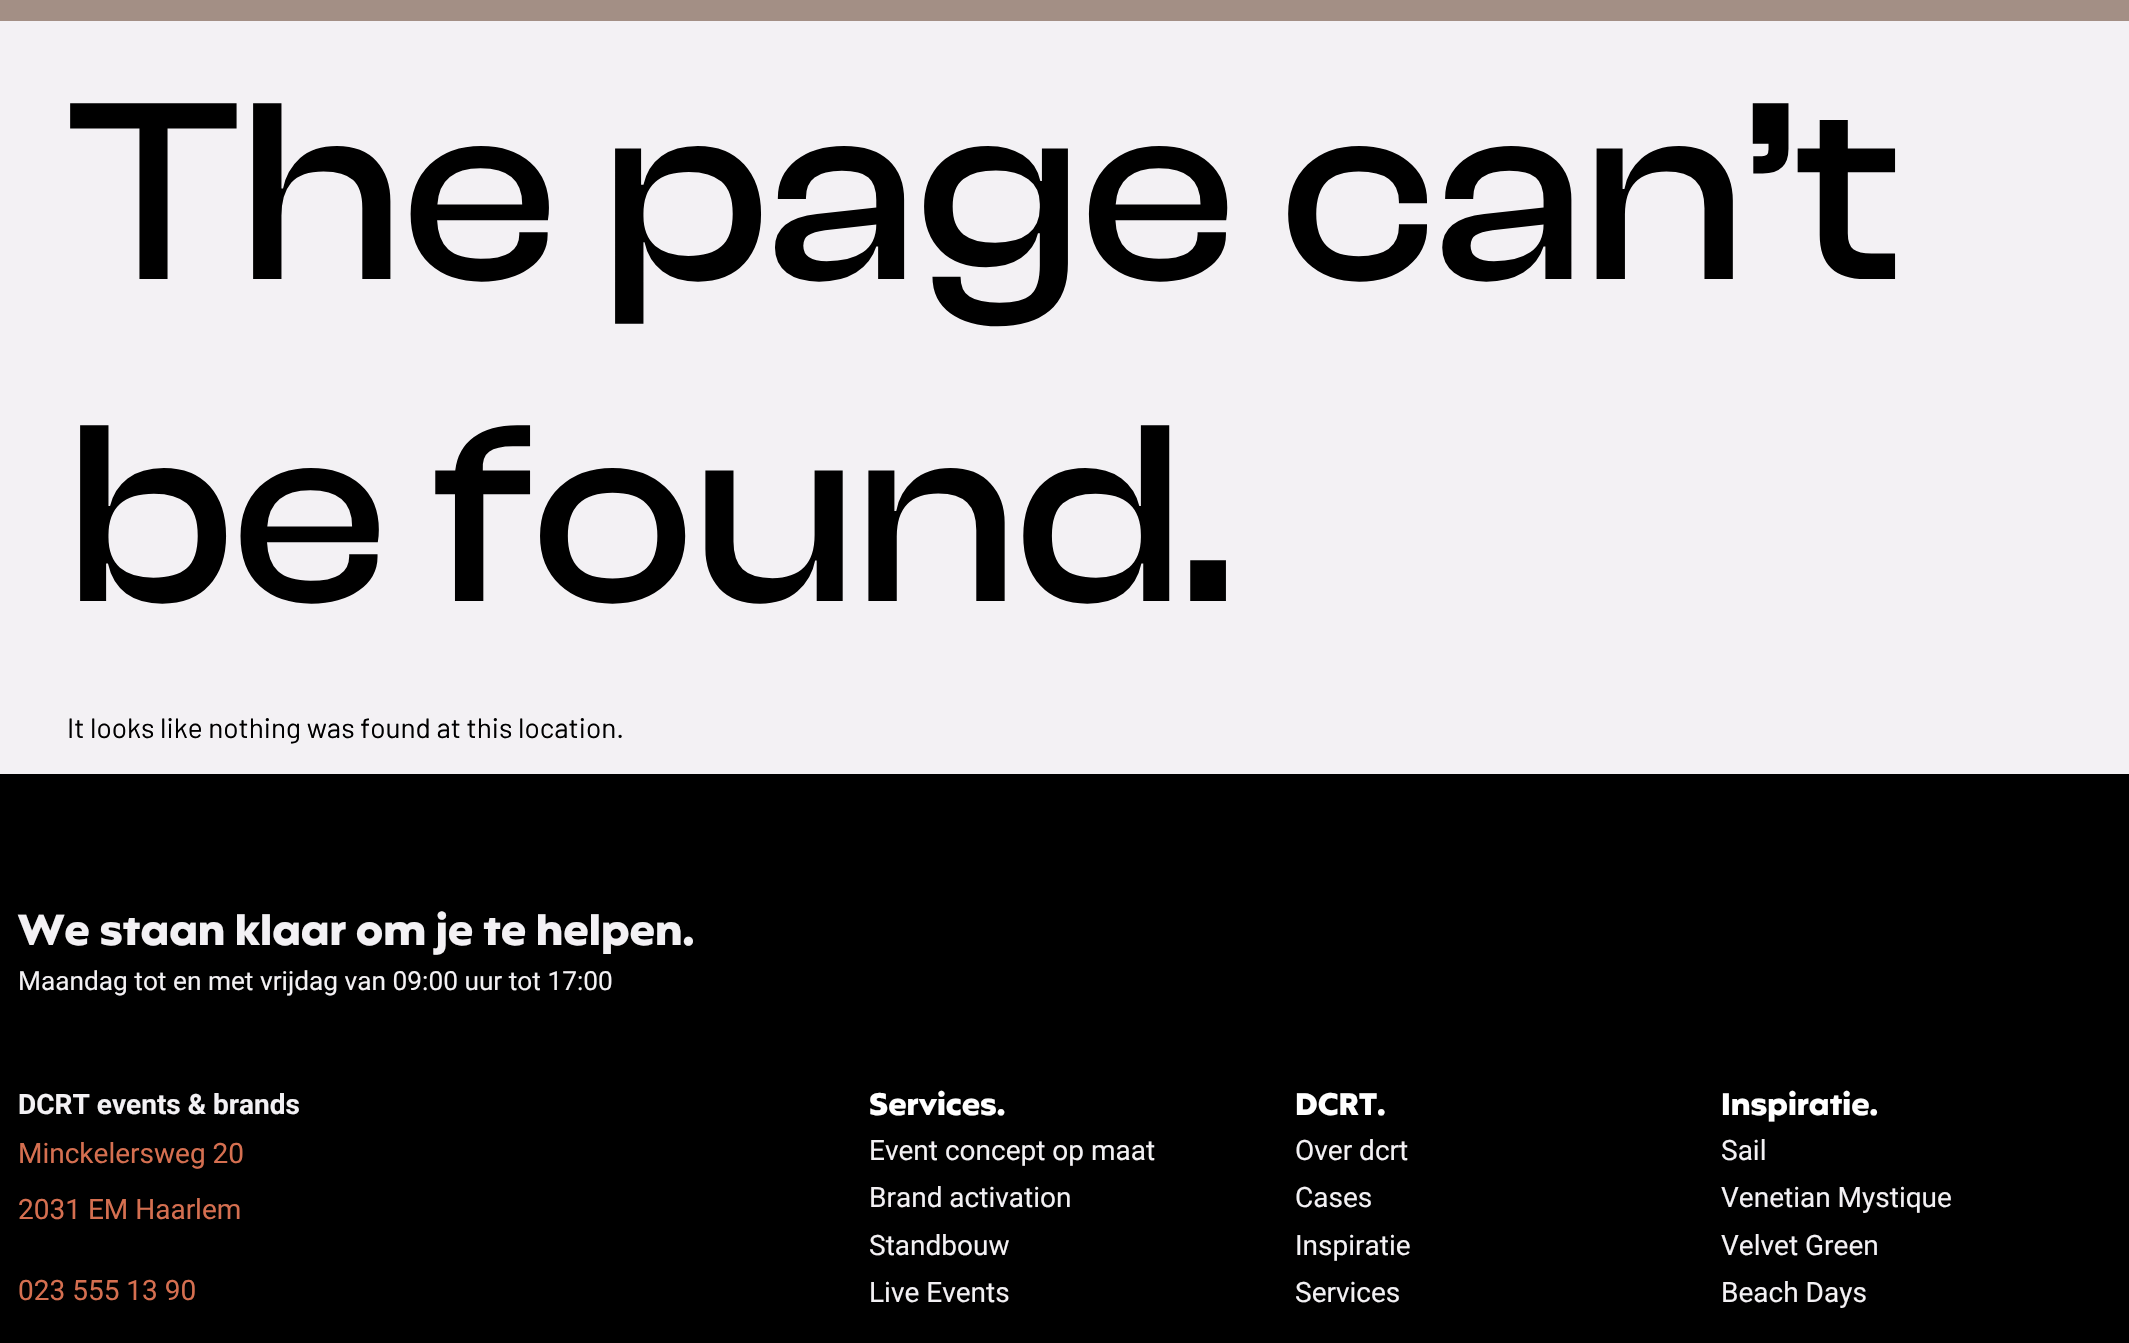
static SkFont makeFont(const char* family, int weight, float size, bool italic = false) {
  SkFontStyle style(weight, SkFontStyle::kNormal_Width,
    italic ? SkFontStyle::kItalic_Slant : SkFontStyle::kUpright_Slant);
  SkFont result(fontMgr->matchFamilyStyle(family, style), size);
  result.setSubpixel(true);
  return result;
}

static void text(SkCanvas* c, const char* s, float x, float y, const SkFont& font, SkColor color) {
  SkPaint ink(SkColor4f::FromColor(color));
  ink.setAntiAlias(true);
  c->drawString(s, x, y, font, ink);
}

static void box(SkCanvas* c, float l, float t, float r, float b, SkColor color) {
  SkPaint ink(SkColor4f::FromColor(color));
  ink.setAntiAlias(true);
  c->drawRect(SkRect::MakeLTRB(l, t, r, b), ink);
}

void draw(SkCanvas* c) {
  SkPaint paint;
  paint.setAntiAlias(true);
  c->clear(0xfff3f1f4);
  box(c, 0, 0, 2129, 21, 0xffa38f85);
  SkFont face1 = makeFont("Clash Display", 500, 262.5f);
  text(c, "The page can’t", 67, 279, face1, 0xff000000);
  text(c, "be found.", 67, 601, face1, 0xff000000);
  SkFont face2 = makeFont("Barlow", 400, 28);
  text(c, "It looks like nothing was found at this location.", 67, 738, face2, 0xff000000);
  box(c, 0, 774, 2129, 1343, 0xff000000);
  SkFont face3 = makeFont("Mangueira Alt", 900, 43.75f);
  text(c, "We staan klaar om je te helpen.", 18, 945, face3, 0xfff3f1f4);
  SkFont face4 = makeFont("Roboto", 400, 26.25f);
  text(c, "Maandag tot en met vrijdag van 09:00 uur tot 17:00", 18, 990, face4, 0xfff3f1f4);
  SkFont face5 = makeFont("Roboto", 700, 28);
  text(c, "DCRT events & brands", 18, 1114, face5, 0xfff3f1f4);
  SkFont face6 = makeFont("Roboto", 400, 28);
  text(c, "Minckelersweg 20", 18, 1163, face6, 0xffd56f50);
  text(c, "2031 EM Haarlem", 18, 1219, face6, 0xffd56f50);
  text(c, "023 555 13 90", 18, 1300, face6, 0xffd56f50);
  SkFont face7 = makeFont("Mangueira Alt", 900, 31.5f);
  text(c, "Services.", 869, 1115, face7, 0xffffffff);
  text(c, "Event concept op maat", 869, 1160, face6, 0xfff3f1f4);
  text(c, "Brand activation", 869, 1207, face6, 0xfff3f1f4);
  text(c, "Standbouw", 869, 1255, face6, 0xfff3f1f4);
  text(c, "Live Events", 869, 1302, face6, 0xfff3f1f4);
  text(c, "DCRT.", 1295, 1115, face7, 0xffffffff);
  text(c, "Over dcrt", 1295, 1160, face6, 0xfff3f1f4);
  text(c, "Cases", 1295, 1207, face6, 0xfff3f1f4);
  text(c, "Inspiratie", 1295, 1255, face6, 0xfff3f1f4);
  text(c, "Services", 1295, 1302, face6, 0xfff3f1f4);
  text(c, "Inspiratie.", 1721, 1115, face7, 0xffffffff);
  text(c, "Sail", 1721, 1160, face6, 0xfff3f1f4);
  text(c, "Venetian Mystique", 1721, 1207, face6, 0xfff3f1f4);
  text(c, "Velvet Green", 1721, 1255, face6, 0xfff3f1f4);
  text(c, "Beach Days", 1721, 1302, face6, 0xfff3f1f4);
}
